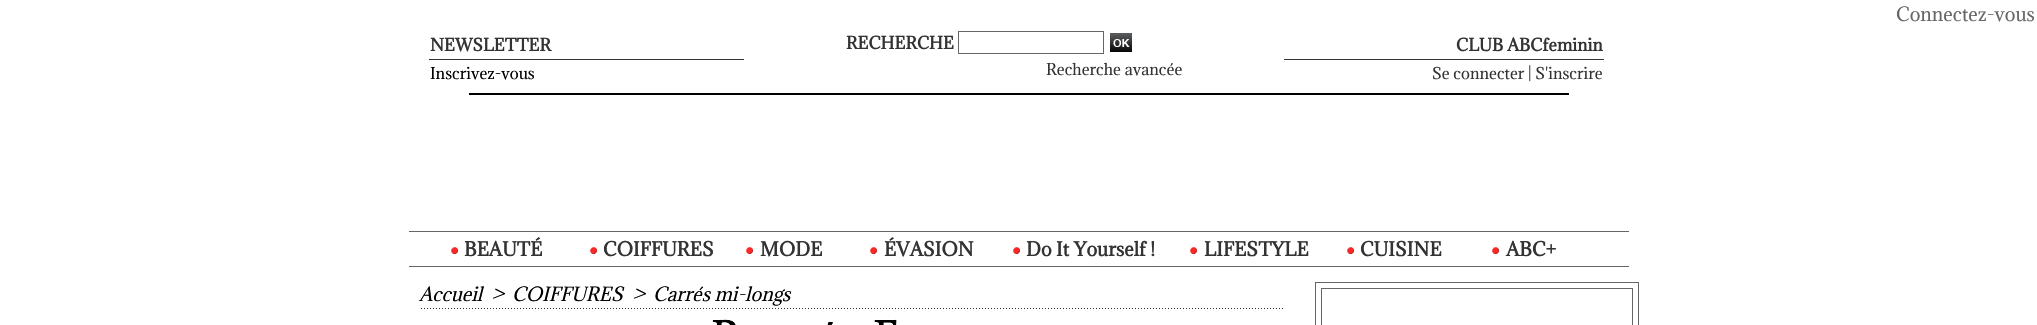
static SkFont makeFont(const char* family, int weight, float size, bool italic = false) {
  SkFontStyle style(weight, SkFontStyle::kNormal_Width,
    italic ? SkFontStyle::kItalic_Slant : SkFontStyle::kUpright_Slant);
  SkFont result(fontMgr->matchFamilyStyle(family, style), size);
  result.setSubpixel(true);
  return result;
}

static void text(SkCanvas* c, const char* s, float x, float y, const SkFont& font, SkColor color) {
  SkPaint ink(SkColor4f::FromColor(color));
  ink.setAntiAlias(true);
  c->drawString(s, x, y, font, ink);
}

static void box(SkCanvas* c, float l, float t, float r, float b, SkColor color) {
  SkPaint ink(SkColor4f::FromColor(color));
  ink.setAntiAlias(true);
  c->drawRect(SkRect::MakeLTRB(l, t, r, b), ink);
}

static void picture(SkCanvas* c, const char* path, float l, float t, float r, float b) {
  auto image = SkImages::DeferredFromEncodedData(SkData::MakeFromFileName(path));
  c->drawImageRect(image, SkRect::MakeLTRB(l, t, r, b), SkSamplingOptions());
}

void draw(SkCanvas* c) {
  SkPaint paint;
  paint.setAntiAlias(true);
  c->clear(0xffffffff);
  SkFont face1 = makeFont("Adamina", 400, 18);
  text(c, "Connectez-vous", 1896, 21, face1, 0xff666666);
  picture(c, "img_01.png", 469, 93, 1569, 95);
  box(c, 429, 59, 744, 60, 0xff333333);
  SkFont face2 = makeFont("Adamina", 700, 16);
  text(c, "NEWSLETTER", 430, 51, face2, 0xff333333);
  SkFont face3 = makeFont("Adamina", 400, 15);
  text(c, "Inscrivez-vous", 430, 79, face3, 0xff000000);
  text(c, "RECHERCHE", 846, 49, face2, 0xff333333);
  paint.setStyle(SkPaint::kStroke_Style);
  paint.setStrokeWidth(1);
  paint.setColor(0xff666666);
  c->drawRect(SkRect::MakeLTRB(958.5f, 31.5f, 1103.5f, 53.5f), paint);
  picture(c, "img_02.png", 1110, 33, 1132, 52);
  text(c, "Recherche avancée", 1046, 75, face3, 0xff333333);
  box(c, 1284, 59, 1604, 60, 0xff333333);
  text(c, "CLUB ABCfeminin", 1456, 51, face2, 0xff333333);
  text(c, "Se connecter | S'inscrire", 1432, 79, face3, 0xff333333);
  box(c, 409, 231, 1629, 232, 0xff666666);
  box(c, 409, 266, 1629, 267, 0xff666666);
  picture(c, "img_03.png", 451, 247, 458, 254);
  SkFont face4 = makeFont("Adamina", 700, 18);
  text(c, "BEAUTÉ", 464, 256, face4, 0xff333333);
  picture(c, "img_03.png", 590, 247, 597, 254);
  text(c, "COIFFURES", 603, 256, face4, 0xff333333);
  picture(c, "img_03.png", 746, 247, 753, 254);
  text(c, "MODE", 760, 256, face4, 0xff333333);
  picture(c, "img_03.png", 870, 247, 877, 254);
  text(c, "ÉVASION", 884, 256, face4, 0xff333333);
  picture(c, "img_03.png", 1013, 247, 1020, 254);
  text(c, "Do It Yourself !", 1026, 256, face4, 0xff333333);
  picture(c, "img_03.png", 1190, 247, 1197, 254);
  text(c, "LIFESTYLE", 1204, 256, face4, 0xff333333);
  picture(c, "img_03.png", 1347, 247, 1354, 254);
  text(c, "CUISINE", 1360, 256, face4, 0xff333333);
  picture(c, "img_03.png", 1492, 247, 1499, 254);
  text(c, "ABC+", 1506, 256, face4, 0xff333333);
  SkFont face5 = makeFont("Adamina", 400, 18, true);
  text(c, "Accueil", 419, 301, face5, 0xff000000);
  text(c, ">", 491, 301, face5, 0xff000000);
  text(c, "COIFFURES", 512, 301, face5, 0xff000000);
  text(c, ">", 632, 301, face5, 0xff000000);
  text(c, "Carrés mi-longs", 653, 301, face5, 0xff000000);
  picture(c, "img_04.png", 421, 308, 1283, 309);
  picture(c, "img_05.png", 712, 319, 897, 325);
  c->drawRect(SkRect::MakeLTRB(1315.5f, 282.5f, 1638.5f, 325.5f), paint);
  c->drawRect(SkRect::MakeLTRB(1321.5f, 288.5f, 1632.5f, 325.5f), paint);
}
